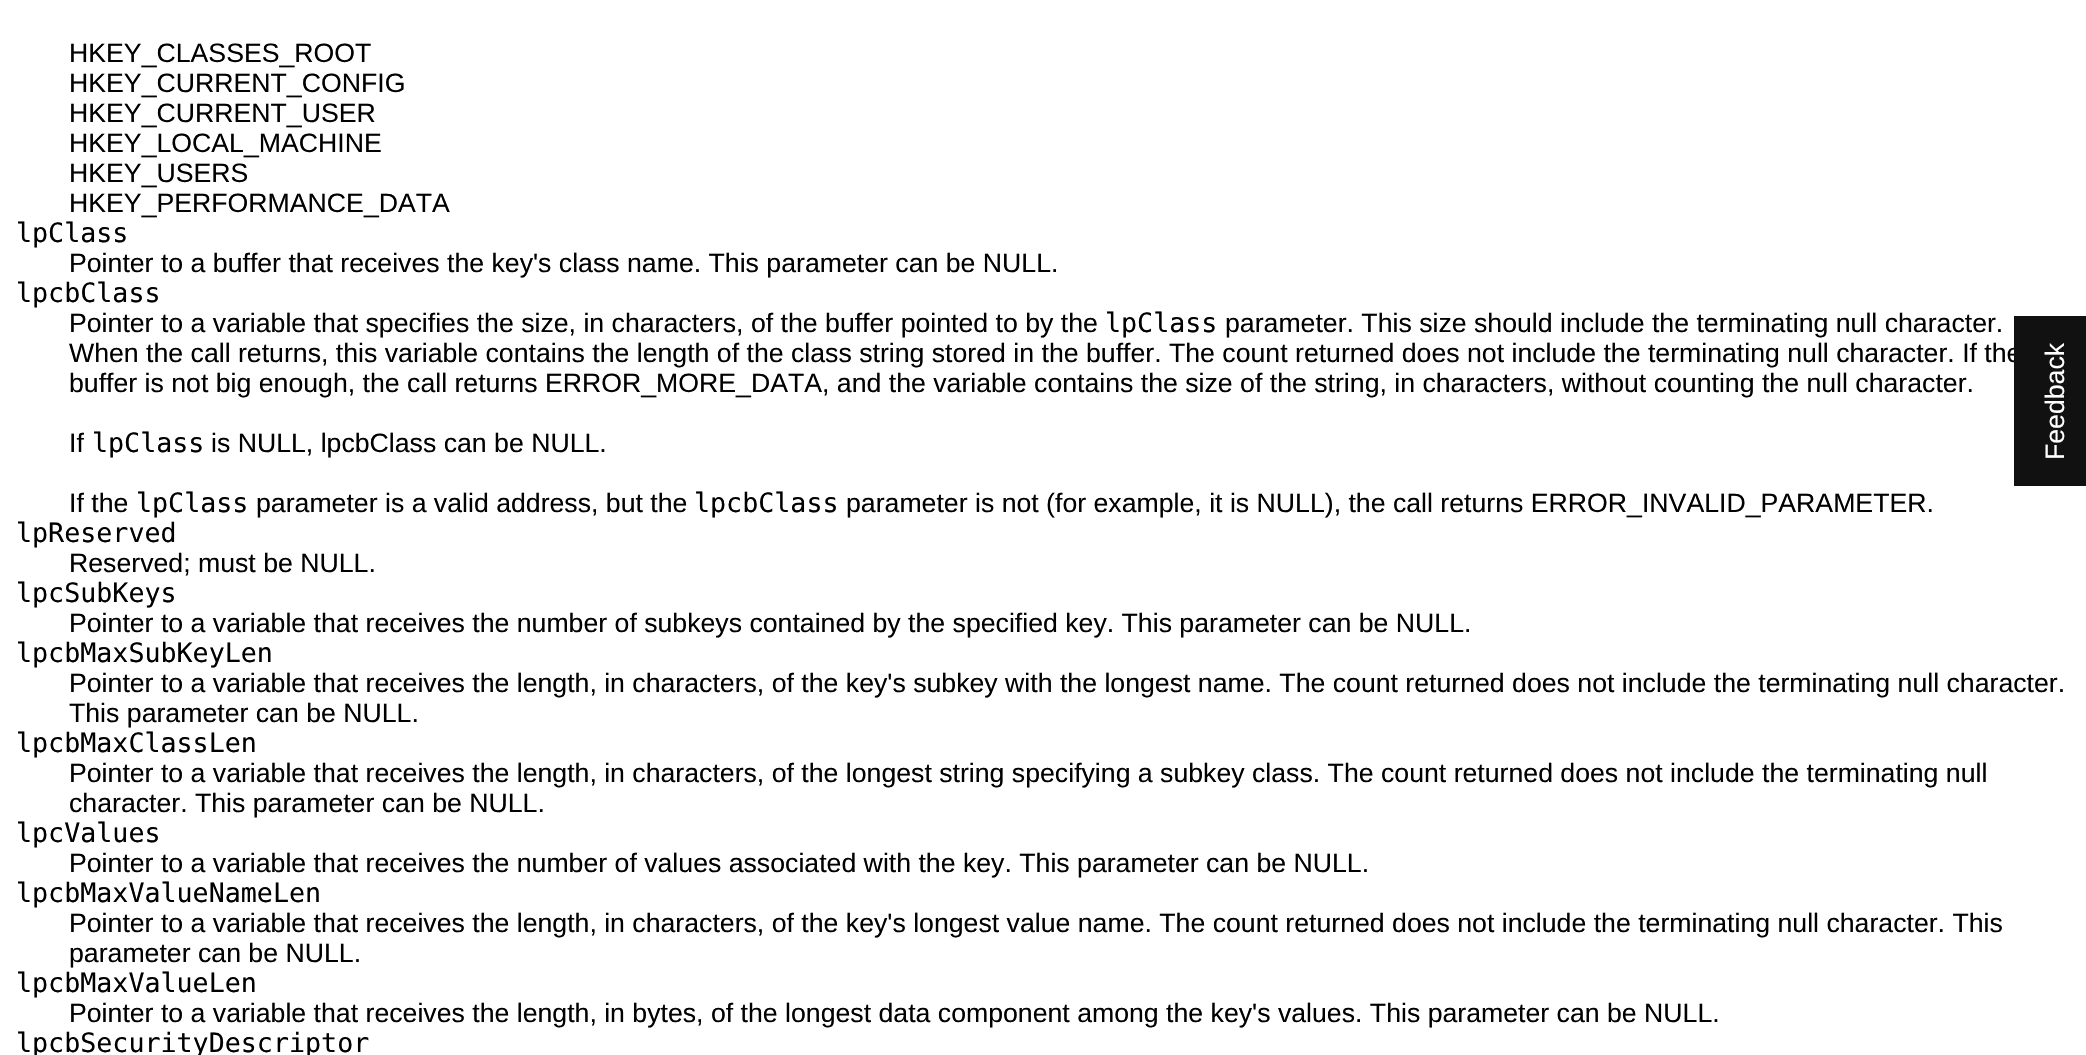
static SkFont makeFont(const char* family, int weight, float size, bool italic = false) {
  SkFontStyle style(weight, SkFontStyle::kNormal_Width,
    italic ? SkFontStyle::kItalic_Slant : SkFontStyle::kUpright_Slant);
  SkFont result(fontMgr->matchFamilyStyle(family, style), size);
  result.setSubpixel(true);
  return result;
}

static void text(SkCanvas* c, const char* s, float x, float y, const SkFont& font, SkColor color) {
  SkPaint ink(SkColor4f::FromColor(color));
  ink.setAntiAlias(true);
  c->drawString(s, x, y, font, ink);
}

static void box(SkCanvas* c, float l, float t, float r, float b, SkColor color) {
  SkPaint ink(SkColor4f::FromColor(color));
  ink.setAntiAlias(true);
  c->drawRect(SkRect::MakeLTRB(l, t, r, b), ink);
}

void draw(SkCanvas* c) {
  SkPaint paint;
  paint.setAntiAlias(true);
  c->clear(0xffffffff);
  SkFont face1 = makeFont("Liberation Sans", 400, 26.67f);
  text(c, "HKEY_CLASSES_ROOT", 69, 62, face1, 0xff000000);
  text(c, "HKEY_CURRENT_CONFIG", 69, 92, face1, 0xff000000);
  text(c, "HKEY_CURRENT_USER", 69, 122, face1, 0xff000000);
  text(c, "HKEY_LOCAL_MACHINE", 69, 152, face1, 0xff000000);
  text(c, "HKEY_USERS", 69, 182, face1, 0xff000000);
  text(c, "HKEY_PERFORMANCE_DATA", 69, 212, face1, 0xff000000);
  SkFont face2 = makeFont("DejaVu Sans Mono", 400, 26.67f);
  text(c, "lpClass", 16, 242, face2, 0xff000000);
  text(c, "Pointer to a buffer that receives the key's class name. This parameter can be NULL.", 69, 272, face1, 0xff000000);
  text(c, "lpcbClass", 16, 302, face2, 0xff000000);
  text(c, "Pointer to a variable that specifies the size, in characters, of the buffer pointed to by the", 69, 332, face1, 0xff000000);
  text(c, "lpClass", 1105, 332, face2, 0xff000000);
  text(c, "parameter. This size should include the terminating null character.", 1225, 332, face1, 0xff000000);
  text(c, "When the call returns, this variable contains the length of the class string stored in the buffer. The count returned does not include the terminating null character. If the", 69, 362, face1, 0xff000000);
  text(c, "buffer is not big enough, the call returns ERROR_MORE_DATA, and the variable contains the size of the string, in characters, without counting the null character.", 69, 392, face1, 0xff000000);
  text(c, "If", 69, 452, face1, 0xff000000);
  text(c, "lpClass", 92, 452, face2, 0xff000000);
  text(c, "is NULL, lpcbClass can be NULL.", 211, 452, face1, 0xff000000);
  text(c, "If the", 69, 512, face1, 0xff000000);
  text(c, "lpClass", 136, 512, face2, 0xff000000);
  text(c, "parameter is a valid address, but the", 256, 512, face1, 0xff000000);
  text(c, "lpcbClass", 694, 512, face2, 0xff000000);
  text(c, "parameter is not (for example, it is NULL), the call returns ERROR_INVALID_PARAMETER.", 846, 512, face1, 0xff000000);
  text(c, "lpReserved", 16, 542, face2, 0xff000000);
  text(c, "Reserved; must be NULL.", 69, 572, face1, 0xff000000);
  text(c, "lpcSubKeys", 16, 602, face2, 0xff000000);
  text(c, "Pointer to a variable that receives the number of subkeys contained by the specified key. This parameter can be NULL.", 69, 632, face1, 0xff000000);
  text(c, "lpcbMaxSubKeyLen", 16, 662, face2, 0xff000000);
  text(c, "Pointer to a variable that receives the length, in characters, of the key's subkey with the longest name. The count returned does not include the terminating null character.", 69, 692, face1, 0xff000000);
  text(c, "This parameter can be NULL.", 69, 722, face1, 0xff000000);
  text(c, "lpcbMaxClassLen", 16, 752, face2, 0xff000000);
  text(c, "Pointer to a variable that receives the length, in characters, of the longest string specifying a subkey class. The count returned does not include the terminating null", 69, 782, face1, 0xff000000);
  text(c, "character. This parameter can be NULL.", 69, 812, face1, 0xff000000);
  text(c, "lpcValues", 16, 842, face2, 0xff000000);
  text(c, "Pointer to a variable that receives the number of values associated with the key. This parameter can be NULL.", 69, 872, face1, 0xff000000);
  text(c, "lpcbMaxValueNameLen", 16, 902, face2, 0xff000000);
  text(c, "Pointer to a variable that receives the length, in characters, of the key's longest value name. The count returned does not include the terminating null character. This", 69, 932, face1, 0xff000000);
  text(c, "parameter can be NULL.", 69, 962, face1, 0xff000000);
  text(c, "lpcbMaxValueLen", 16, 992, face2, 0xff000000);
  text(c, "Pointer to a variable that receives the length, in bytes, of the longest data component among the key's values. This parameter can be NULL.", 69, 1022, face1, 0xff000000);
  text(c, "lpcbSecurityDescriptor", 16, 1052, face2, 0xff000000);
  box(c, 2014, 316, 2086, 486, 0xff111111);
  c->save();
  c->rotate(-90, 2064, 460);
  text(c, "Feedback", 2064, 460, face1, 0xffffffff);
  c->restore();
}
